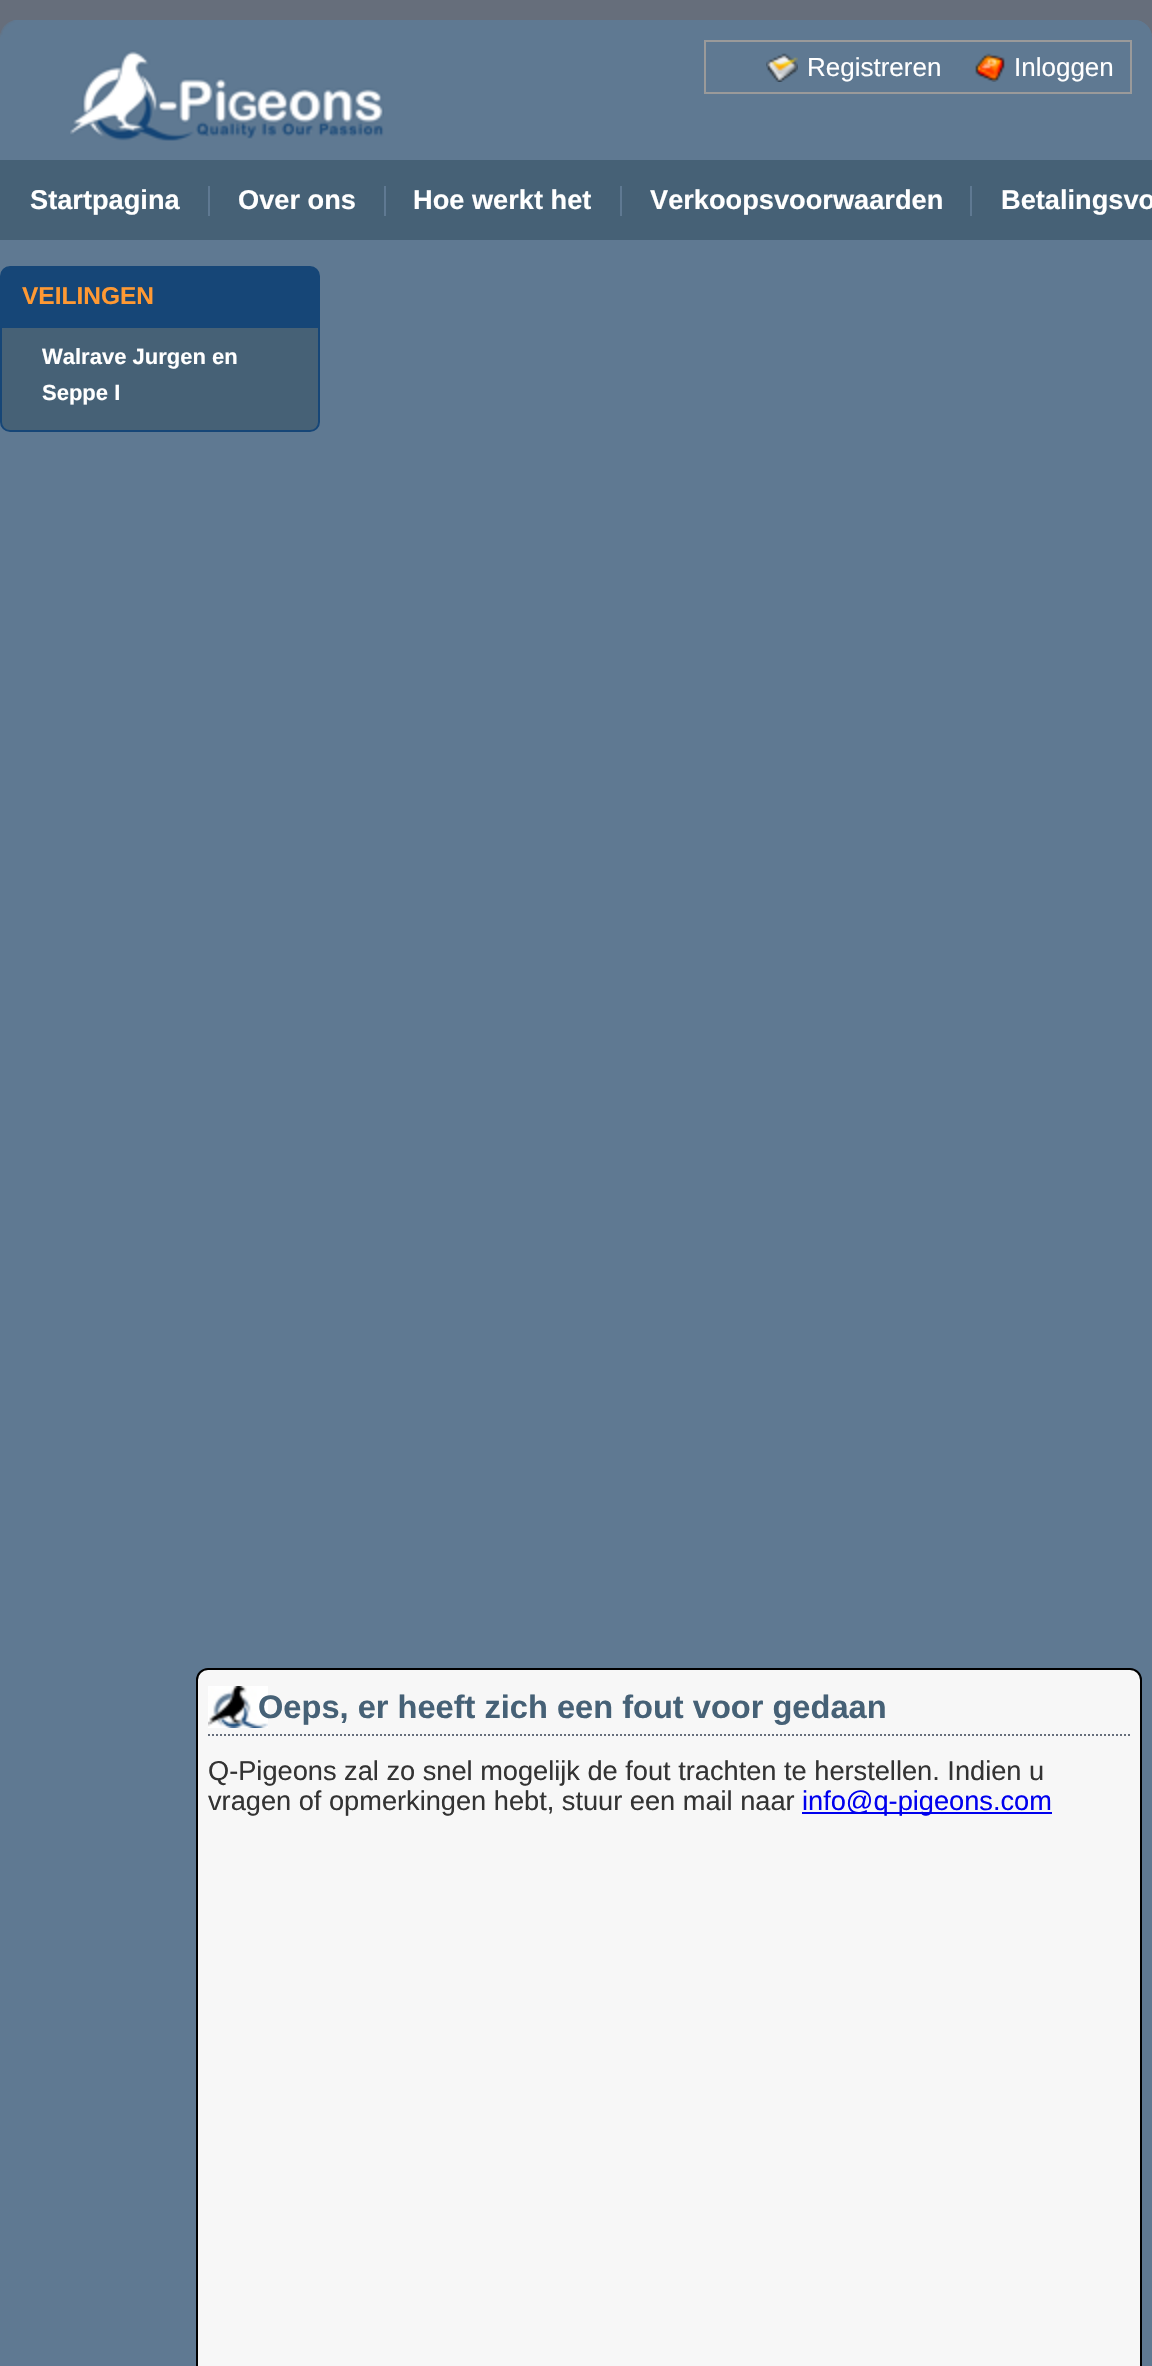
static SkFont makeFont(const char* family, int weight, float size, bool italic = false) {
  SkFontStyle style(weight, SkFontStyle::kNormal_Width,
    italic ? SkFontStyle::kItalic_Slant : SkFontStyle::kUpright_Slant);
  SkFont result(fontMgr->matchFamilyStyle(family, style), size);
  result.setSubpixel(true);
  return result;
}

static void text(SkCanvas* c, const char* s, float x, float y, const SkFont& font, SkColor color) {
  SkPaint ink(SkColor4f::FromColor(color));
  ink.setAntiAlias(true);
  c->drawString(s, x, y, font, ink);
}

static void box(SkCanvas* c, float l, float t, float r, float b, SkColor color) {
  SkPaint ink(SkColor4f::FromColor(color));
  ink.setAntiAlias(true);
  c->drawRect(SkRect::MakeLTRB(l, t, r, b), ink);
}

static void roundBox(SkCanvas* c, float l, float t, float r, float b, float radius, SkColor color) {
  SkPaint ink(SkColor4f::FromColor(color));
  ink.setAntiAlias(true);
  c->drawRoundRect(SkRect::MakeLTRB(l, t, r, b), radius, radius, ink);
}

static void picture(SkCanvas* c, const char* path, float l, float t, float r, float b) {
  auto image = SkImages::DeferredFromEncodedData(SkData::MakeFromFileName(path));
  c->drawImageRect(image, SkRect::MakeLTRB(l, t, r, b), SkSamplingOptions());
}

void draw(SkCanvas* c) {
  SkPaint paint;
  paint.setAntiAlias(true);
  c->clear(0xff666e7b);
  roundBox(c, 0, 20, 1152, 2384, 18, 0xff5f7992);
  picture(c, "img_01.png", 1, 20, 1152, 35);
  picture(c, "img_02.png", 70, 50, 384, 141);
  paint.setStyle(SkPaint::kStroke_Style);
  paint.setStrokeWidth(2);
  paint.setColor(0xff9a9a9a);
  c->drawRect(SkRect::MakeLTRB(705, 41, 1131, 93), paint);
  picture(c, "img_03.png", 766, 53, 798, 82);
  SkFont face1 = makeFont("Liberation Sans", 400, 26);
  text(c, "Registreren", 807, 76, face1, 0xffffffff);
  picture(c, "img_04.png", 975, 53, 1005, 82);
  text(c, "Inloggen", 1014, 76, face1, 0xffffffff);
  box(c, 0, 160, 1152, 240, 0xff466176);
  SkFont face2 = makeFont("Liberation Sans", 700, 27.2f);
  text(c, "Startpagina", 30, 209, face2, 0xffffffff);
  box(c, 208, 186, 210, 216, 0xff5f7992);
  text(c, "Over ons", 238, 209, face2, 0xffffffff);
  box(c, 384, 186, 386, 216, 0xff5f7992);
  text(c, "Hoe werkt het", 413, 209, face2, 0xffffffff);
  box(c, 620, 186, 622, 216, 0xff5f7992);
  text(c, "Verkoopsvoorwaarden", 650, 209, face2, 0xffffffff);
  box(c, 970, 186, 972, 216, 0xff5f7992);
  text(c, "Betalingsvo", 1001, 209, face2, 0xffffffff);
  paint.setStyle(SkPaint::kFill_Style);
  paint.setColor(0xff164677);
  c->drawPath(SkPathBuilder().moveTo(10, 267).lineTo(310, 267).cubicTo(315, 267, 319, 271, 319, 276).lineTo(319, 325).lineTo(1, 325).lineTo(1, 276).cubicTo(1, 271, 5, 267, 10, 267).close().detach(), paint);
  paint.setStyle(SkPaint::kStroke_Style);
  c->drawPath(SkPathBuilder().moveTo(10, 267).lineTo(310, 267).cubicTo(315, 267, 319, 271, 319, 276).lineTo(319, 325).lineTo(1, 325).lineTo(1, 276).cubicTo(1, 271, 5, 267, 10, 267).close().detach(), paint);
  SkFont face3 = makeFont("Liberation Sans", 700, 24.5f);
  text(c, "VEILINGEN", 22, 304, face3, 0xffff9933);
  paint.setStyle(SkPaint::kFill_Style);
  paint.setColor(0xff466176);
  c->drawPath(SkPathBuilder().moveTo(1, 327).lineTo(319, 327).lineTo(319, 422).cubicTo(319, 427, 315, 431, 310, 431).lineTo(10, 431).cubicTo(5, 431, 1, 427, 1, 422).close().detach(), paint);
  paint.setStyle(SkPaint::kStroke_Style);
  paint.setColor(0xff164677);
  c->drawPath(SkPathBuilder().moveTo(1, 327).lineTo(319, 327).lineTo(319, 422).cubicTo(319, 427, 315, 431, 310, 431).lineTo(10, 431).cubicTo(5, 431, 1, 427, 1, 422).close().detach(), paint);
  SkFont face4 = makeFont("Liberation Sans", 700, 22);
  text(c, "Walrave Jurgen en", 42, 364, face4, 0xffffffff);
  text(c, "Seppe I", 42, 400, face4, 0xffffffff);
  paint.setStyle(SkPaint::kFill_Style);
  paint.setColor(0xfff7f7f7);
  c->drawRoundRect(SkRect::MakeLTRB(197, 1669, 1141, 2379), 11, 11, paint);
  paint.setStyle(SkPaint::kStroke_Style);
  paint.setColor(0xff000000);
  c->drawRoundRect(SkRect::MakeLTRB(197, 1669, 1141, 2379), 11, 11, paint);
  picture(c, "img_05.png", 208, 1686, 268, 1728);
  paint.setColor(0xff666e7b);
  paint.setPathEffect(SkDashPathEffect::Make({{2, 2}}, 0));
  c->drawPath(SkPathBuilder().moveTo(208, 1735).lineTo(1130, 1735).detach(), paint);
  paint.setPathEffect(nullptr);
  SkFont face5 = makeFont("Liberation Sans", 700, 32.6f);
  text(c, "Oeps, er heeft zich een fout voor gedaan", 258, 1718, face5, 0xff466176);
  SkFont face6 = makeFont("Liberation Sans", 400, 27.2f);
  text(c, "Q-Pigeons zal zo snel mogelijk de fout trachten te herstellen. Indien u", 208, 1780, face6, 0xff333333);
  text(c, "vragen of opmerkingen hebt, stuur een mail naar", 208, 1810, face6, 0xff333333);
  box(c, 802, 1812, 1052, 1814, 0xff0000ee);
  text(c, "info@q-pigeons.com", 802, 1810, face6, 0xff0000ee);
}
